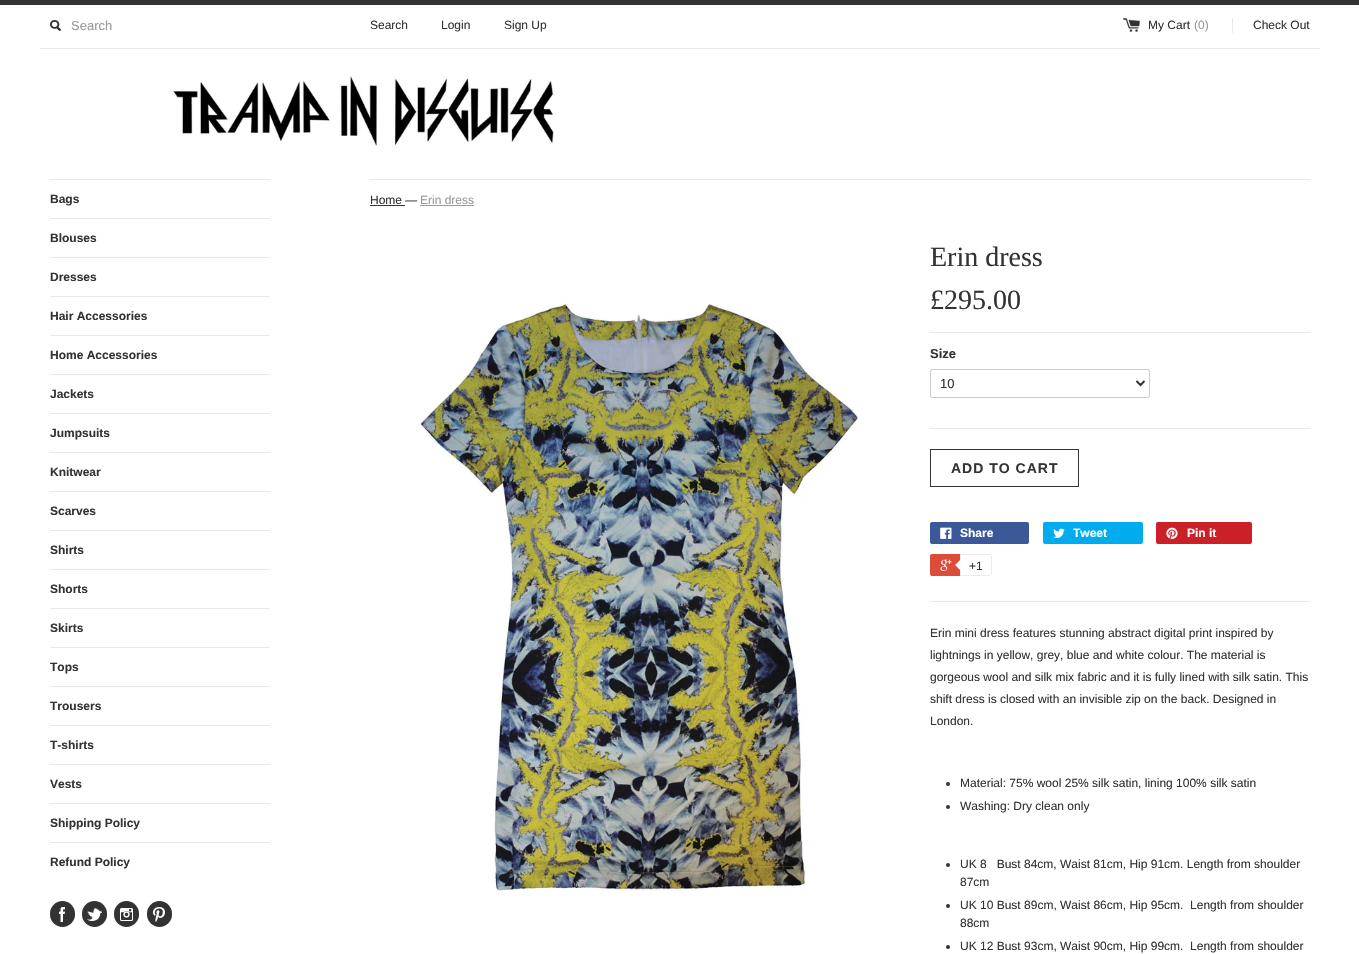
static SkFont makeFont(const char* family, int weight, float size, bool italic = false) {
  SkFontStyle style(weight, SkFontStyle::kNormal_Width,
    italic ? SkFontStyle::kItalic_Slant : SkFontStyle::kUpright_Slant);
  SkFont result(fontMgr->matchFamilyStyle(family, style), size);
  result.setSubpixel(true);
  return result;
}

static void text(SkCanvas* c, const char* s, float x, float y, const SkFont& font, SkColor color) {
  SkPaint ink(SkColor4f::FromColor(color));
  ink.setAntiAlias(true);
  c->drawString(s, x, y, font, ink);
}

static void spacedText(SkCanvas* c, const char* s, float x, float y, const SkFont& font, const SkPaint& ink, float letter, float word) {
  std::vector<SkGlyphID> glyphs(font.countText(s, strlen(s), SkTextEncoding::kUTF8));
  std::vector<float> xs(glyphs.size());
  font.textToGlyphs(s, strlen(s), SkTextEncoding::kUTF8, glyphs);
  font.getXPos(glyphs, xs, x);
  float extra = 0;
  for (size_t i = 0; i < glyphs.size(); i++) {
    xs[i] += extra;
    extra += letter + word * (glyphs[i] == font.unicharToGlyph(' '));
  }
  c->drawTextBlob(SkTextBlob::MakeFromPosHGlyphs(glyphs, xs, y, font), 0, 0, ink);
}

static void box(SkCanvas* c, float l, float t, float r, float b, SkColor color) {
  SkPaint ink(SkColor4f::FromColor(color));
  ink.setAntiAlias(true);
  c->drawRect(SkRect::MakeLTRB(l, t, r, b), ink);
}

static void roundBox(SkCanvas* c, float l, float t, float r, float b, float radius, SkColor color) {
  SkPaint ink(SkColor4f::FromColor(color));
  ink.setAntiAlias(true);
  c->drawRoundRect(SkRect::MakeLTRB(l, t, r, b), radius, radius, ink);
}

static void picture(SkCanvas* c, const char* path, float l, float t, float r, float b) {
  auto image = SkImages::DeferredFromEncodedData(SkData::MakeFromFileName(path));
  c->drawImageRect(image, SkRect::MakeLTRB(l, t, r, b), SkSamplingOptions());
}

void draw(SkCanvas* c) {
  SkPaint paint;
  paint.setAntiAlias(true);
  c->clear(0xffffffff);
  box(c, 0, 0, 1359, 5, 0xff333333);
  box(c, 40, 48, 1320, 49, 0xffe8e8e8);
  picture(c, "img_01.png", 50, 20, 61, 31);
  SkFont face1 = makeFont("Liberation Sans", 400, 13);
  text(c, "Search", 71, 30, face1, 0xff999999);
  SkFont face2 = makeFont("Liberation Sans", 400, 12);
  text(c, "Search", 370, 29, face2, 0xff333333);
  text(c, "Login", 441, 29, face2, 0xff333333);
  text(c, "Sign Up", 504, 29, face2, 0xff333333);
  picture(c, "img_02.png", 1123, 18, 1140, 32);
  text(c, "My Cart", 1148, 29, face2, 0xff333333);
  text(c, "(0)", 1194, 29, face2, 0xff999999);
  text(c, "Check Out", 1253, 29, face2, 0xff333333);
  box(c, 1232, 18, 1233, 33, 0xffe8e8e8);
  picture(c, "img_03.png", 173, 76, 554, 147);
  box(c, 50, 179, 270, 180, 0xffe8e8e8);
  SkFont face3 = makeFont("Liberation Sans", 700, 12);
  text(c, "Bags", 50, 203, face3, 0xff333333);
  box(c, 50, 218, 270, 219, 0xffe8e8e8);
  text(c, "Blouses", 50, 242, face3, 0xff333333);
  box(c, 50, 257, 270, 258, 0xffe8e8e8);
  text(c, "Dresses", 50, 281, face3, 0xff333333);
  box(c, 50, 296, 270, 297, 0xffe8e8e8);
  text(c, "Hair Accessories", 50, 320, face3, 0xff333333);
  box(c, 50, 335, 270, 336, 0xffe8e8e8);
  text(c, "Home Accessories", 50, 359, face3, 0xff333333);
  box(c, 50, 374, 270, 375, 0xffe8e8e8);
  text(c, "Jackets", 50, 398, face3, 0xff333333);
  box(c, 50, 413, 270, 414, 0xffe8e8e8);
  text(c, "Jumpsuits", 50, 437, face3, 0xff333333);
  box(c, 50, 452, 270, 453, 0xffe8e8e8);
  text(c, "Knitwear", 50, 476, face3, 0xff333333);
  box(c, 50, 491, 270, 492, 0xffe8e8e8);
  text(c, "Scarves", 50, 515, face3, 0xff333333);
  box(c, 50, 530, 270, 531, 0xffe8e8e8);
  text(c, "Shirts", 50, 554, face3, 0xff333333);
  box(c, 50, 569, 270, 570, 0xffe8e8e8);
  text(c, "Shorts", 50, 593, face3, 0xff333333);
  box(c, 50, 608, 270, 609, 0xffe8e8e8);
  text(c, "Skirts", 50, 632, face3, 0xff333333);
  box(c, 50, 647, 270, 648, 0xffe8e8e8);
  text(c, "Tops", 50, 671, face3, 0xff333333);
  box(c, 50, 686, 270, 687, 0xffe8e8e8);
  text(c, "Trousers", 50, 710, face3, 0xff333333);
  box(c, 50, 725, 270, 726, 0xffe8e8e8);
  text(c, "T-shirts", 50, 749, face3, 0xff333333);
  box(c, 50, 764, 270, 765, 0xffe8e8e8);
  text(c, "Vests", 50, 788, face3, 0xff333333);
  box(c, 50, 803, 270, 804, 0xffe8e8e8);
  text(c, "Shipping Policy", 50, 827, face3, 0xff333333);
  box(c, 50, 842, 270, 843, 0xffe8e8e8);
  text(c, "Refund Policy", 50, 866, face3, 0xff333333);
  roundBox(c, 50, 901, 75, 927, 12.5f, 0xff333333);
  picture(c, "img_04.png", 59, 907, 65, 922);
  roundBox(c, 82, 901, 107, 927, 12.5f, 0xff333333);
  picture(c, "img_05.png", 87, 908, 102, 921);
  roundBox(c, 114, 901, 139, 927, 12.5f, 0xff333333);
  picture(c, "img_06.png", 120, 908, 133, 921);
  roundBox(c, 147, 901, 172, 927, 12.5f, 0xff333333);
  picture(c, "img_07.png", 153, 907, 165, 922);
  box(c, 370, 179, 1310, 180, 0xffe8e8e8);
  text(c, "Home —", 370, 204, face2, 0xff333333);
  box(c, 370, 205, 405, 206, 0xff333333);
  text(c, "Erin dress", 420, 204, face2, 0xff999999);
  box(c, 420, 205, 474, 206, 0xff999999);
  picture(c, "img_08.png", 420, 303, 860, 893);
  SkFont face4 = makeFont("Liberation Serif", 400, 28);
  text(c, "Erin dress", 930, 266, face4, 0xff333333);
  text(c, "£295.00", 930, 309, face4, 0xff333333);
  box(c, 930, 332, 1310, 333, 0xffe8e8e8);
  box(c, 930, 428, 1310, 429, 0xffe8e8e8);
  SkFont face5 = makeFont("Liberation Sans", 700, 13);
  text(c, "Size", 930, 358, face5, 0xff333333);
  paint.setStyle(SkPaint::kStroke_Style);
  paint.setStrokeWidth(1);
  paint.setColor(0xffcccccc);
  c->drawRoundRect(SkRect::MakeLTRB(930.5f, 369.5f, 1149.5f, 397.5f), 1.5f, 1.5f, paint);
  paint.setStrokeWidth(2);
  paint.setColor(0xff333333);
  c->drawPath(SkPathBuilder().moveTo(1136.5f, 381).lineTo(1140.5f, 385).lineTo(1144.5f, 381).detach(), paint);
  text(c, "10", 940, 388, face1, 0xff333333);
  paint.setStrokeWidth(1);
  c->drawRect(SkRect::MakeLTRB(930.5f, 449.5f, 1078.5f, 486.5f), paint);
  SkFont face6 = makeFont("Liberation Sans", 700, 14);
  paint.setStyle(SkPaint::kFill_Style);
  spacedText(c, "ADD TO CART", 951, 473, face6, paint, 1, 0);
  roundBox(c, 930, 522, 1029, 544, 2, 0xff3b5998);
  picture(c, "img_09.png", 940, 527, 952, 539);
  text(c, "Share", 960, 537, face3, 0xffffffff);
  roundBox(c, 1043, 522, 1143, 544, 2, 0xff00aced);
  picture(c, "img_10.png", 1053, 528, 1065, 538);
  text(c, "Tweet", 1073, 537, face3, 0xffffffff);
  roundBox(c, 1156, 522, 1252, 544, 2, 0xffcb2027);
  picture(c, "img_11.png", 1166, 527, 1178, 539);
  text(c, "Pin it", 1187, 537, face3, 0xffffffff);
  roundBox(c, 930, 554, 990, 576, 2, 0xffdd4b39);
  picture(c, "img_12.png", 940, 559, 952, 571);
  paint.setColor(0xffffffff);
  c->drawPath(SkPathBuilder().moveTo(960.5f, 554.5f).lineTo(990, 554.5f).cubicTo(991, 554.5f, 991.5f, 555, 991.5f, 556).lineTo(991.5f, 574).cubicTo(991.5f, 575, 991, 575.5f, 990, 575.5f).lineTo(960.5f, 575.5f).close().detach(), paint);
  paint.setStyle(SkPaint::kStroke_Style);
  paint.setColor(0xffececec);
  c->drawPath(SkPathBuilder().moveTo(960.5f, 554.5f).lineTo(990, 554.5f).cubicTo(991, 554.5f, 991.5f, 555, 991.5f, 556).lineTo(991.5f, 574).cubicTo(991.5f, 575, 991, 575.5f, 990, 575.5f).lineTo(960.5f, 575.5f).close().detach(), paint);
  paint.setStyle(SkPaint::kFill_Style);
  c->drawPath(SkPathBuilder().moveTo(961, 559).lineTo(961, 571).lineTo(955, 565).close().detach(), paint);
  paint.setColor(0xffffffff);
  c->drawPath(SkPathBuilder().moveTo(962, 559).lineTo(962, 571).lineTo(956, 565).close().detach(), paint);
  text(c, "+1", 969, 570, face2, 0xff333333);
  box(c, 930, 601, 1310, 602, 0xffe8e8e8);
  text(c, "Erin mini dress features stunning abstract digital print inspired by", 930, 637, face2, 0xff333333);
  text(c, "lightnings in yellow, grey, blue and white colour. The material is", 930, 659, face2, 0xff333333);
  text(c, "gorgeous wool and silk mix fabric and it is fully lined with silk satin. This", 930, 681, face2, 0xff333333);
  text(c, "shift dress is closed with an invisible zip on the back. Designed in", 930, 703, face2, 0xff333333);
  text(c, "London.", 930, 725, face2, 0xff333333);
  paint.setColor(0xff333333);
  c->drawCircle(948, 784, 2, paint);
  text(c, "Material: 75% wool 25% silk satin, lining 100% silk satin", 960, 787, face2, 0xff333333);
  c->drawCircle(948, 807, 2, paint);
  text(c, "Washing: Dry clean only", 960, 810, face2, 0xff333333);
  c->drawCircle(948, 865, 2, paint);
  text(c, "UK 8   Bust 84cm, Waist 81cm, Hip 91cm. Length from shoulder", 960, 868, face2, 0xff333333);
  text(c, "87cm", 960, 886, face2, 0xff333333);
  c->drawCircle(948, 906, 2, paint);
  text(c, "UK 10 Bust 89cm, Waist 86cm, Hip 95cm.  Length from shoulder", 960, 909, face2, 0xff333333);
  text(c, "88cm", 960, 927, face2, 0xff333333);
  c->drawCircle(948, 947, 2, paint);
  text(c, "UK 12 Bust 93cm, Waist 90cm, Hip 99cm.  Length from shoulder", 960, 950, face2, 0xff333333);
}
